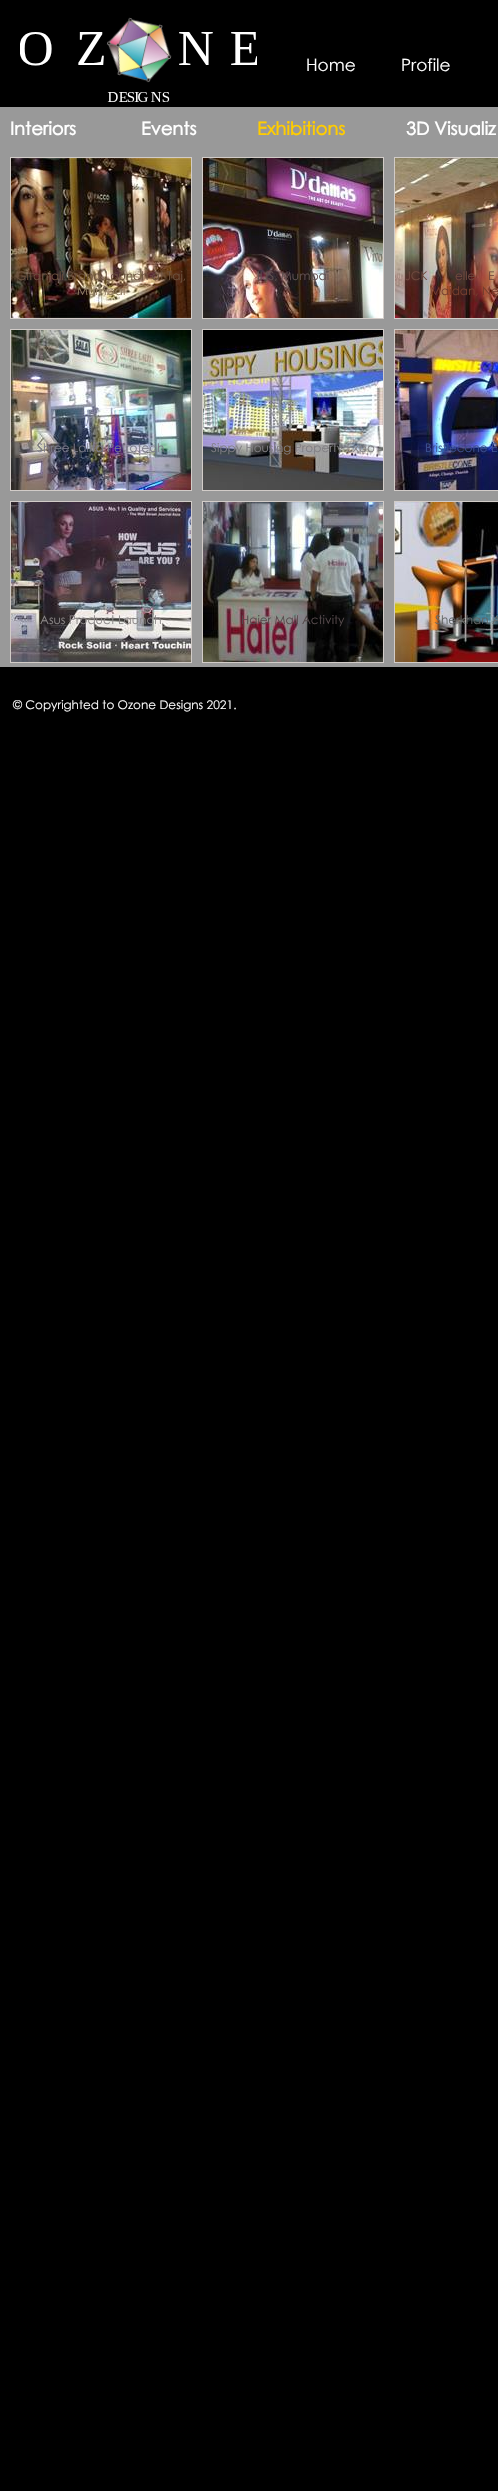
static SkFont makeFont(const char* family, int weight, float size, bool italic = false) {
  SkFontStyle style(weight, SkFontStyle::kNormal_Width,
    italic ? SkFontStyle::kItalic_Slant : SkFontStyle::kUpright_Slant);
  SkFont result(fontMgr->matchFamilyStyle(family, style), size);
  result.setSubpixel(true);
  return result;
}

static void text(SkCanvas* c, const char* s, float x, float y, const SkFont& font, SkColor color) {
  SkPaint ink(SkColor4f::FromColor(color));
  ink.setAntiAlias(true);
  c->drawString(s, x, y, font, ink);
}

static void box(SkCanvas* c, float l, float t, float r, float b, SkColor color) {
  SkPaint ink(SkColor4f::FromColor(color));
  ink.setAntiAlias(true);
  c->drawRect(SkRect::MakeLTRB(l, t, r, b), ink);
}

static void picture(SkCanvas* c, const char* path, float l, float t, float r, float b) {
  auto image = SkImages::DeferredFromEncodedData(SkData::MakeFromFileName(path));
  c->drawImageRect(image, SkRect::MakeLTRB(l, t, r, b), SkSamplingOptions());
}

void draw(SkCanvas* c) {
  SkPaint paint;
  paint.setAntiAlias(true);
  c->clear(0xff000000);
  picture(c, "img_01.png", 20, 17, 257, 102);
  SkFont face1 = makeFont("Century Gothic", 400, 17);
  text(c, "Home", 306, 71, face1, 0xffffffff);
  text(c, "Profile", 401, 71, face1, 0xffffffff);
  box(c, 0, 107, 498, 667, 0xff999999);
  SkFont face2 = makeFont("Century Gothic", 700, 18);
  text(c, "Interiors", 10, 135, face2, 0xffffffff);
  text(c, "Events", 141, 135, face2, 0xffffffff);
  text(c, "Exhibitions", 257, 135, face2, 0xffffcc00);
  text(c, "3D Visualiz", 406, 135, face2, 0xffffffff);
  paint.setStyle(SkPaint::kStroke_Style);
  paint.setStrokeWidth(1);
  paint.setColor(0xffd2ccc8);
  c->drawRect(SkRect::MakeLTRB(10.5f, 157.5f, 191.5f, 318.5f), paint);
  picture(c, "img_02.png", 11, 158, 191, 318);
  SkFont face3 = makeFont("Century Gothic", 400, 12);
  text(c, "Gitanjali Brand Launch at Taj,", 16, 280, face3, 0xff6b513e);
  text(c, "Mumbai", 77, 295, face3, 0xff927f65);
  c->drawRect(SkRect::MakeLTRB(202.5f, 157.5f, 383.5f, 318.5f), paint);
  picture(c, "img_03.png", 203, 158, 383, 318);
  text(c, "IIJS, Mumbai", 257, 280, face3, 0xff605050);
  c->drawRect(SkRect::MakeLTRB(394.5f, 157.5f, 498.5f, 318.5f), paint);
  picture(c, "img_04.png", 395, 158, 498, 318);
  text(c, "JCK", 405, 280, face3, 0xff6f493e);
  text(c, "elle", 455, 280, face3, 0xff6f493e);
  text(c, "E", 488, 280, face3, 0xff6f493e);
  text(c, "Maidan, Ne", 430, 295, face3, 0xff763e2e);
  c->drawRect(SkRect::MakeLTRB(10.5f, 329.5f, 191.5f, 490.5f), paint);
  picture(c, "img_05.png", 11, 330, 191, 490);
  text(c, "Shree Lalita Petrotech", 37, 452, face3, 0xff7b7b8a);
  c->drawRect(SkRect::MakeLTRB(202.5f, 329.5f, 383.5f, 490.5f), paint);
  picture(c, "img_06.png", 203, 330, 383, 490);
  text(c, "Sippy Housing Property Expo", 211, 452, face3, 0xff807e83);
  c->drawRect(SkRect::MakeLTRB(394.5f, 329.5f, 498.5f, 490.5f), paint);
  picture(c, "img_07.png", 395, 330, 498, 490);
  text(c, "Bristlecone E", 425, 452, face3, 0xff3c5090);
  c->drawRect(SkRect::MakeLTRB(10.5f, 501.5f, 191.5f, 662.5f), paint);
  picture(c, "img_08.png", 11, 502, 191, 662);
  text(c, "Asus Product Launch", 40, 624, face3, 0xff8b8787);
  c->drawRect(SkRect::MakeLTRB(202.5f, 501.5f, 383.5f, 662.5f), paint);
  picture(c, "img_09.png", 203, 502, 383, 662);
  text(c, "Haier Mall Activity", 241, 624, face3, 0xff564a4c);
  c->drawRect(SkRect::MakeLTRB(394.5f, 501.5f, 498.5f, 662.5f), paint);
  picture(c, "img_10.png", 395, 502, 498, 662);
  text(c, "Sherkhan A", 435, 624, face3, 0xff626666);
  text(c, "© Copyrighted to Ozone Designs 2021.", 13, 709, face3, 0xffffffff);
}
